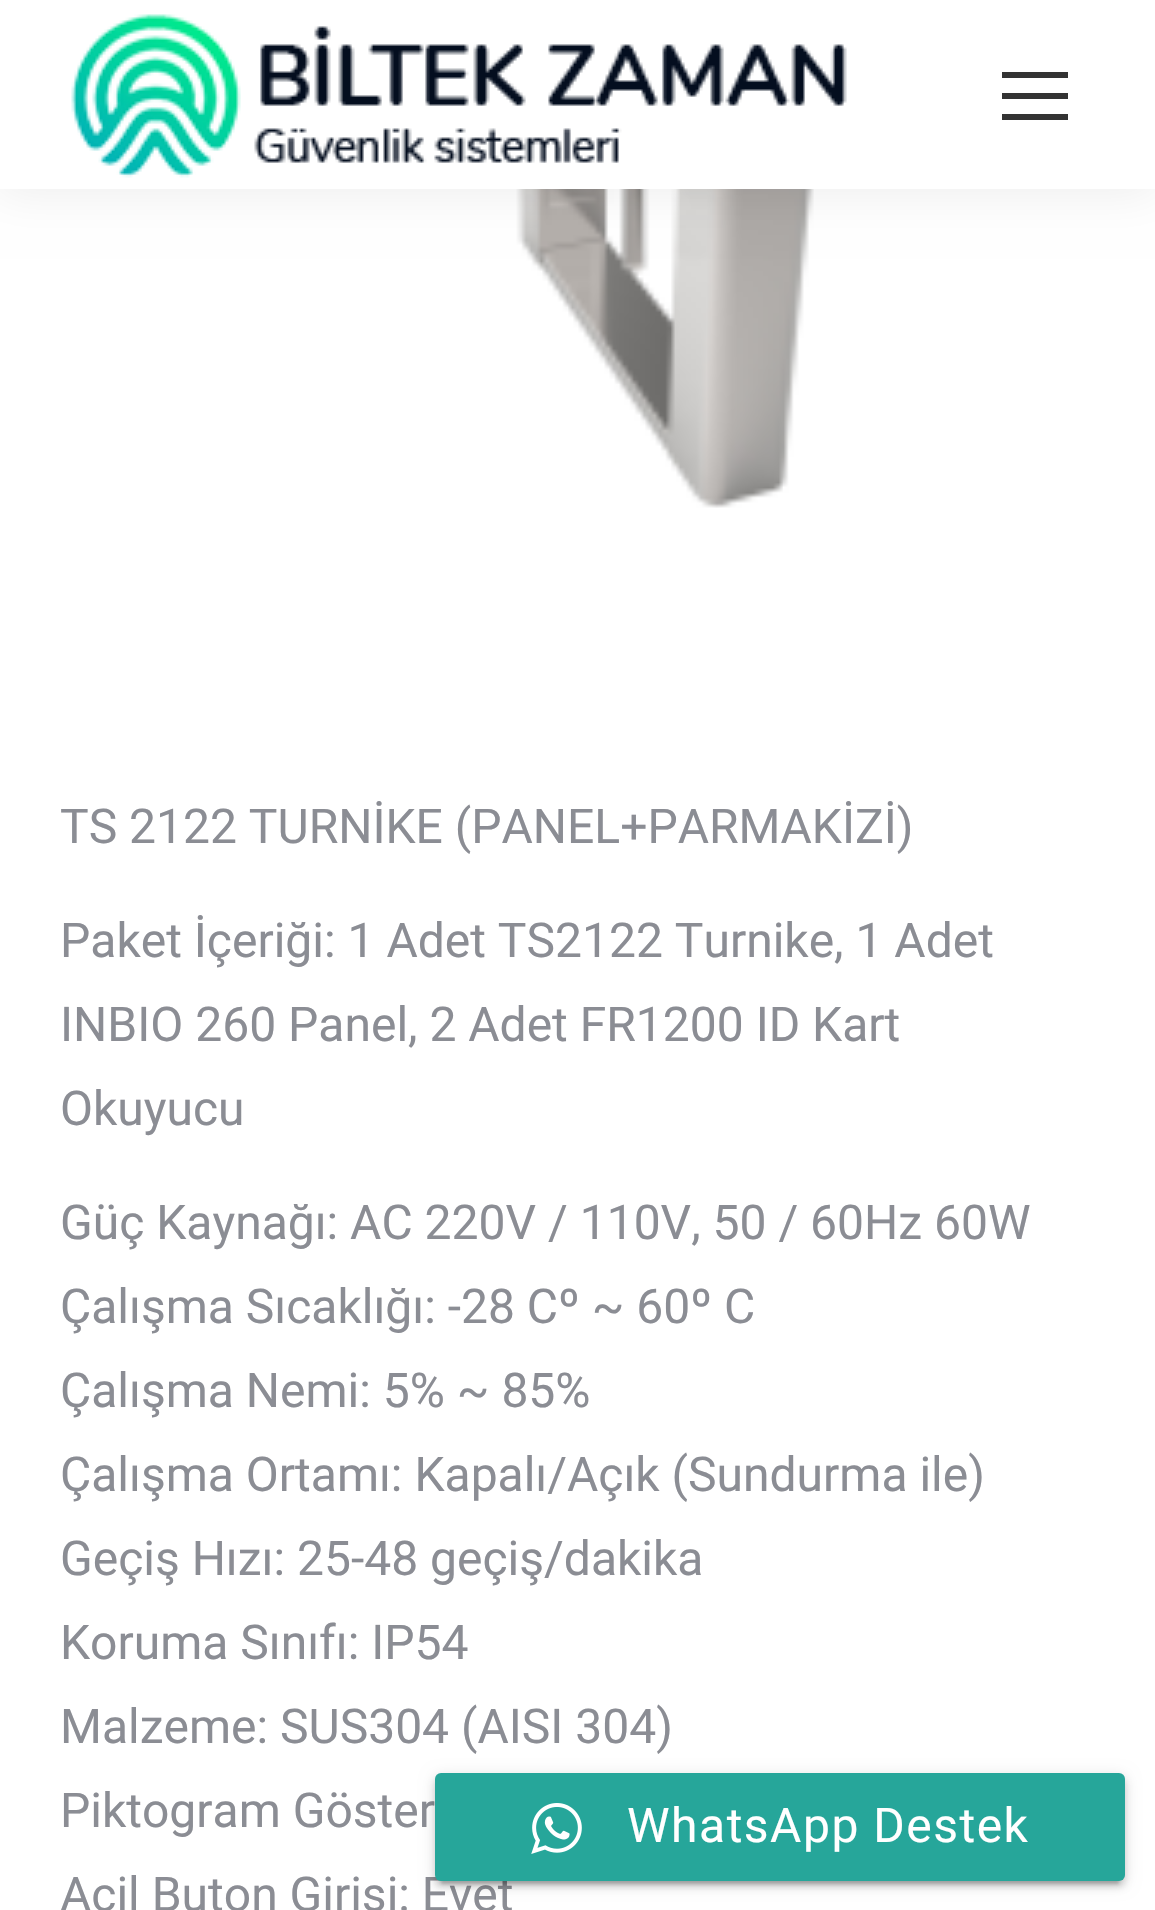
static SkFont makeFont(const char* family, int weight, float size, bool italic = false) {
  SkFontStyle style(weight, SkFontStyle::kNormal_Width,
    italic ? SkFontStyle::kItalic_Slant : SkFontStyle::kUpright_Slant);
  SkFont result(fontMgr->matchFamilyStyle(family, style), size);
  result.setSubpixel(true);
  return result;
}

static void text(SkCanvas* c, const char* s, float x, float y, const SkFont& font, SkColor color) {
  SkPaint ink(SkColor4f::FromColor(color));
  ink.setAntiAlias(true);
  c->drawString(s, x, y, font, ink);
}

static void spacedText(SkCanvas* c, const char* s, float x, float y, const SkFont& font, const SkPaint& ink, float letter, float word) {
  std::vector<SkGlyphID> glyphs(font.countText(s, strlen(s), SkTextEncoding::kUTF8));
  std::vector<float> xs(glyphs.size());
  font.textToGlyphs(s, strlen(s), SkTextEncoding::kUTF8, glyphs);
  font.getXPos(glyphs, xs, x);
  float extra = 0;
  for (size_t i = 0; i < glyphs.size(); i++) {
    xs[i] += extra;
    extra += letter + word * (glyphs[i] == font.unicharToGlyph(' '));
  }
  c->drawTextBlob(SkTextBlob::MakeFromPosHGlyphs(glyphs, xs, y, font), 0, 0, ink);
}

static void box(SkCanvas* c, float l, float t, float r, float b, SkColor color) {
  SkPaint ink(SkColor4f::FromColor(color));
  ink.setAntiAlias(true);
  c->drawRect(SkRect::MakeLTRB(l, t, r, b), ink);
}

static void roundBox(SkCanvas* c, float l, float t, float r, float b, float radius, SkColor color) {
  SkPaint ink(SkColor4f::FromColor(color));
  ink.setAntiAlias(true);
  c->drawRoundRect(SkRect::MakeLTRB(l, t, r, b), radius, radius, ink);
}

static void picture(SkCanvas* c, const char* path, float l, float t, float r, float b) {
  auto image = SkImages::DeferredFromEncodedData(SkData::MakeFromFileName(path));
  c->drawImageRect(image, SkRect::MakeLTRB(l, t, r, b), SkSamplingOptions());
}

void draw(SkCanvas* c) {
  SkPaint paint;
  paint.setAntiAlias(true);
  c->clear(0xffffffff);
  picture(c, "img_02.png", 331, 189, 829, 508);
  paint.setColor(0x12000000);
  paint.setMaskFilter(SkMaskFilter::MakeBlur(kNormal_SkBlurStyle, 22.5f));
  c->drawRect(SkRect::MakeLTRB(-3, -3, 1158, 192), paint);
  paint.setMaskFilter(nullptr);
  box(c, 0, 0, 1155, 189, 0xffffffff);
  picture(c, "img_01.png", 71, 14, 847, 178);
  box(c, 1002, 72, 1068, 78, 0xff333333);
  box(c, 1002, 93, 1068, 99, 0xff333333);
  box(c, 1002, 114, 1068, 120, 0xff333333);
  SkFont face1 = makeFont("Roboto", 400, 48);
  text(c, "TS 2122 TURNİKE (PANEL+PARMAKİZİ)", 60, 843, face1, 0xff8b8d94);
  text(c, "Paket İçeriği: 1 Adet TS2122 Turnike, 1 Adet", 60, 957, face1, 0xff8b8d94);
  text(c, "INBIO 260 Panel, 2 Adet FR1200 ID Kart", 60, 1041, face1, 0xff8b8d94);
  text(c, "Okuyucu", 60, 1125, face1, 0xff8b8d94);
  text(c, "Güç Kaynağı: AC 220V / 110V, 50 / 60Hz 60W", 60, 1239, face1, 0xff8b8d94);
  text(c, "Çalışma Sıcaklığı: -28 Cº ~ 60º C", 60, 1323, face1, 0xff8b8d94);
  text(c, "Çalışma Nemi: 5% ~ 85%", 60, 1407, face1, 0xff8b8d94);
  text(c, "Çalışma Ortamı: Kapalı/Açık (Sundurma ile)", 60, 1491, face1, 0xff8b8d94);
  text(c, "Geçiş Hızı: 25-48 geçiş/dakika", 60, 1575, face1, 0xff8b8d94);
  text(c, "Koruma Sınıfı: IP54", 60, 1659, face1, 0xff8b8d94);
  text(c, "Malzeme: SUS304 (AISI 304)", 60, 1743, face1, 0xff8b8d94);
  text(c, "Piktogram Göster", 60, 1827, face1, 0xff8b8d94);
  text(c, "Acil Buton Girişi: Evet", 60, 1911, face1, 0xff8b8d94);
  paint.setColor(0x33000000);
  paint.setMaskFilter(SkMaskFilter::MakeBlur(kNormal_SkBlurStyle, 1.5f));
  c->drawRect(SkRect::MakeLTRB(441, 1788, 1119, 1884), paint);
  paint.setMaskFilter(nullptr);
  paint.setColor(0x1f000000);
  paint.setMaskFilter(SkMaskFilter::MakeBlur(kNormal_SkBlurStyle, 7.5f));
  c->drawRoundRect(SkRect::MakeLTRB(435, 1776, 1125, 1884), 6, 6, paint);
  paint.setMaskFilter(nullptr);
  paint.setColor(0x24000000);
  paint.setMaskFilter(SkMaskFilter::MakeBlur(kNormal_SkBlurStyle, 3));
  c->drawRoundRect(SkRect::MakeLTRB(435, 1779, 1125, 1887), 6, 6, paint);
  paint.setMaskFilter(nullptr);
  roundBox(c, 435, 1773, 1125, 1881, 6, 0xff26a69a);
  picture(c, "img_03.png", 531, 1803, 582, 1854);
  paint.setColor(0xffffffff);
  spacedText(c, "WhatsApp Destek", 627, 1842, face1, paint, 1.5f, 0);
}
